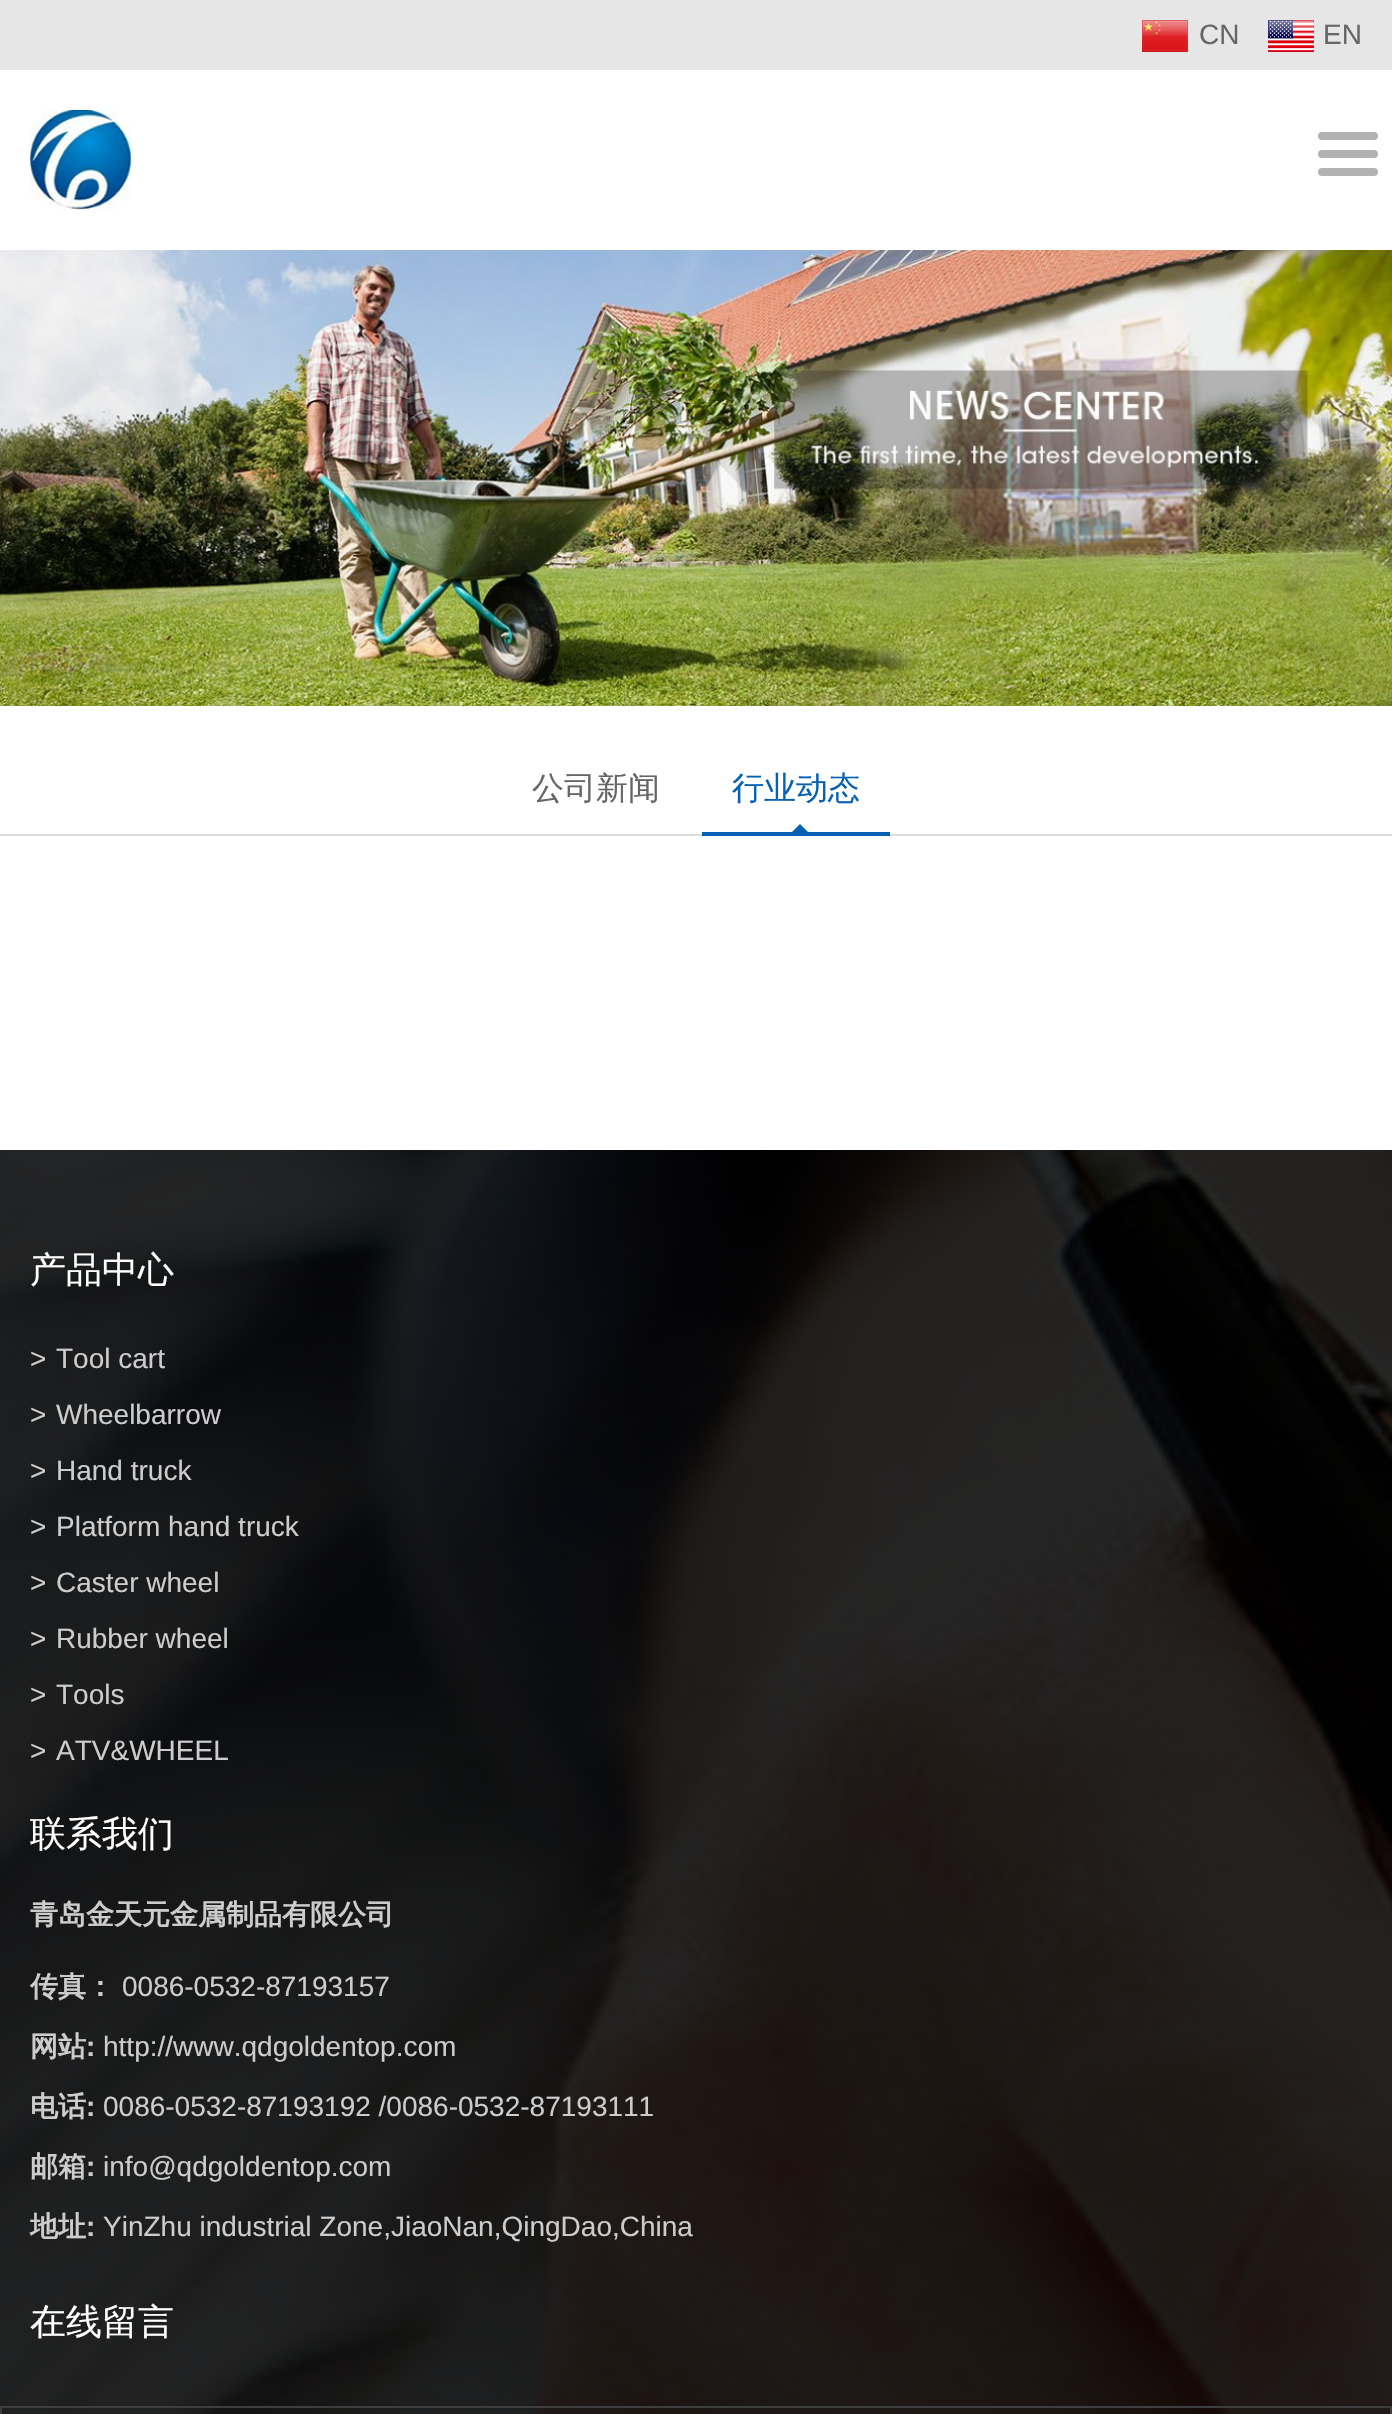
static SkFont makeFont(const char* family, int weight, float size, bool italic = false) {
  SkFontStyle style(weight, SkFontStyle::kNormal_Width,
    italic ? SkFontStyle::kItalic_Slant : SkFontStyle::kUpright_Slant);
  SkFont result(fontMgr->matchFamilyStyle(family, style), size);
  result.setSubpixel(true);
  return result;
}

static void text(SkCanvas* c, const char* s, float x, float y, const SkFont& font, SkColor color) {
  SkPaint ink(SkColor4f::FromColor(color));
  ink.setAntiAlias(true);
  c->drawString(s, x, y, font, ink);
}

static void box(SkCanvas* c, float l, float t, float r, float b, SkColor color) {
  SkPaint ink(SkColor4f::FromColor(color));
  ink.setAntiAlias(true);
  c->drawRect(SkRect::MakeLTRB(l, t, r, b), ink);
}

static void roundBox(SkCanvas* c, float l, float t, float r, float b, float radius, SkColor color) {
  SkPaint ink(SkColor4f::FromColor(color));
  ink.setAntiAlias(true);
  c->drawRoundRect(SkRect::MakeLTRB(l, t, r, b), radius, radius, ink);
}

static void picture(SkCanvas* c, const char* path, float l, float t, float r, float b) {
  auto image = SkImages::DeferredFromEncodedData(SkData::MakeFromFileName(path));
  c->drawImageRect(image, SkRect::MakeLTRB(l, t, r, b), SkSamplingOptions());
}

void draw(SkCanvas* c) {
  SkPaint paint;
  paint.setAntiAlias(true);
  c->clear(0xffffffff);
  box(c, 0, 0, 1392, 70, 0xffe6e6e6);
  picture(c, "img_01.png", 1142, 20, 1188, 52);
  SkFont face1 = makeFont("Liberation Sans", 400, 28);
  text(c, "CN", 1199, 44, face1, 0xff666666);
  picture(c, "img_02.png", 1268, 20, 1314, 52);
  text(c, "EN", 1323, 44, face1, 0xff666666);
  picture(c, "img_03.png", 30, 110, 132, 210);
  roundBox(c, 1318, 150, 1378, 158, 4, 0xffb2b2b2);
  roundBox(c, 1318, 132, 1378, 140, 4, 0xffb2b2b2);
  roundBox(c, 1318, 168, 1378, 176, 4, 0xffb2b2b2);
  picture(c, "img_04.png", 0, 250, 1392, 706);
  box(c, 0, 834, 1392, 836, 0xffdddddd);
  SkFont face2 = makeFont("WenQuanYi Zen Hei", 500, 32);
  text(c, "公司新闻", 532, 799, face2, 0xff666666);
  box(c, 702, 832, 890, 836, 0xff0661b5);
  text(c, "行业动态", 732, 799, face2, 0xff0661b5);
  paint.setColor(0xff0661b5);
  c->drawPath(SkPathBuilder().moveTo(808, 832).lineTo(792, 832).lineTo(800, 824).close().detach(), paint);
  picture(c, "img_05.png", 0, 1150, 1392, 2414);
  SkFont face3 = makeFont("WenQuanYi Zen Hei", 500, 36);
  text(c, "产品中心", 30, 1282, face3, 0xffffffff);
  text(c, ">", 30, 1368, face1, 0xffcccccc);
  text(c, "Tool cart", 56, 1368, face1, 0xffcccccc);
  text(c, ">", 30, 1424, face1, 0xffcccccc);
  text(c, "Wheelbarrow", 56, 1424, face1, 0xffcccccc);
  text(c, ">", 30, 1480, face1, 0xffcccccc);
  text(c, "Hand truck", 56, 1480, face1, 0xffcccccc);
  text(c, ">", 30, 1536, face1, 0xffcccccc);
  text(c, "Platform hand truck", 56, 1536, face1, 0xffcccccc);
  text(c, ">", 30, 1592, face1, 0xffcccccc);
  text(c, "Caster wheel", 56, 1592, face1, 0xffcccccc);
  text(c, ">", 30, 1648, face1, 0xffcccccc);
  text(c, "Rubber wheel", 56, 1648, face1, 0xffcccccc);
  text(c, ">", 30, 1704, face1, 0xffcccccc);
  text(c, "Tools", 56, 1704, face1, 0xffcccccc);
  text(c, ">", 30, 1760, face1, 0xffcccccc);
  text(c, "ATV&WHEEL", 56, 1760, face1, 0xffcccccc);
  text(c, "联系我们", 30, 1846, face3, 0xffffffff);
  SkFont face4 = makeFont("WenQuanYi Zen Hei", 700, 28);
  text(c, "青岛金天元金属制品有限公司", 30, 1924, face4, 0xffcccccc);
  text(c, "传真：", 30, 1996, face4, 0xffcccccc);
  text(c, "0086-0532-87193157", 122, 1996, face1, 0xffcccccc);
  text(c, "网站", 30, 2056, face4, 0xffcccccc);
  SkFont face5 = makeFont("Liberation Sans", 700, 28);
  text(c, ":", 86, 2056, face5, 0xffcccccc);
  text(c, "http://www.qdgoldentop.com", 103, 2056, face1, 0xffcccccc);
  text(c, "电话", 30, 2116, face4, 0xffcccccc);
  text(c, ":", 86, 2116, face5, 0xffcccccc);
  text(c, "0086-0532-87193192 /0086-0532-87193111", 103, 2116, face1, 0xffcccccc);
  text(c, "邮箱", 30, 2176, face4, 0xffcccccc);
  text(c, ":", 86, 2176, face5, 0xffcccccc);
  text(c, "info@qdgoldentop.com", 103, 2176, face1, 0xffcccccc);
  text(c, "地址", 30, 2236, face4, 0xffcccccc);
  text(c, ":", 86, 2236, face5, 0xffcccccc);
  text(c, "YinZhu industrial Zone,JiaoNan,QingDao,China", 103, 2236, face1, 0xffcccccc);
  text(c, "在线留言", 30, 2334, face3, 0xffffffff);
  paint.setStyle(SkPaint::kStroke_Style);
  paint.setStrokeWidth(2);
  paint.setColor(0xff3e3e3e);
  c->drawRect(SkRect::MakeLTRB(1, 2407, 1391, 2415), paint);
}
